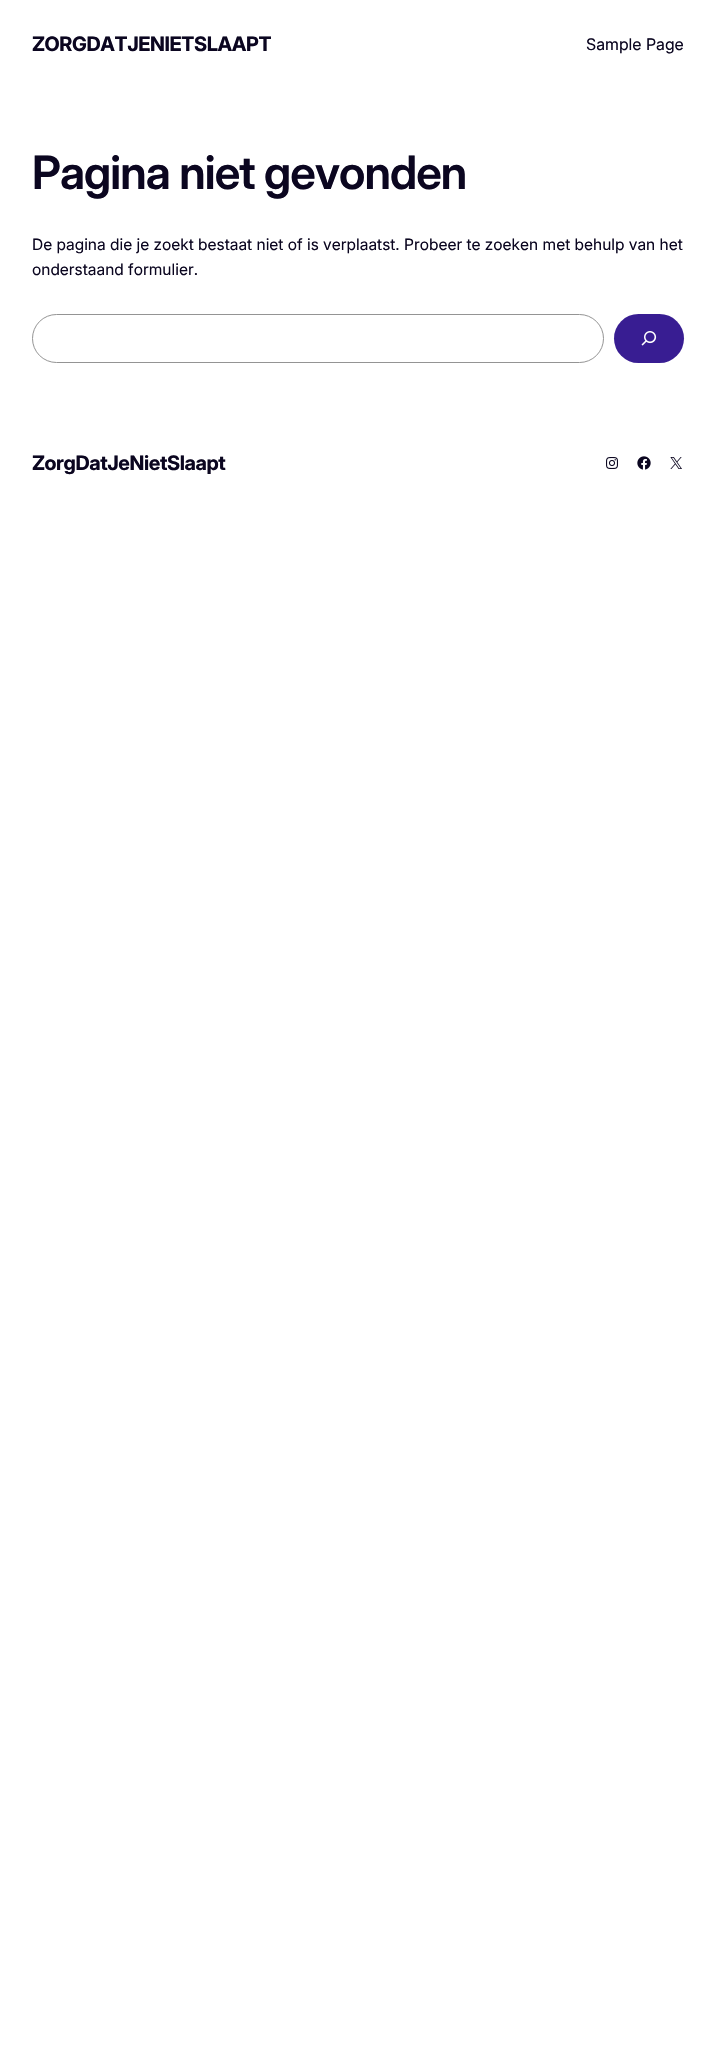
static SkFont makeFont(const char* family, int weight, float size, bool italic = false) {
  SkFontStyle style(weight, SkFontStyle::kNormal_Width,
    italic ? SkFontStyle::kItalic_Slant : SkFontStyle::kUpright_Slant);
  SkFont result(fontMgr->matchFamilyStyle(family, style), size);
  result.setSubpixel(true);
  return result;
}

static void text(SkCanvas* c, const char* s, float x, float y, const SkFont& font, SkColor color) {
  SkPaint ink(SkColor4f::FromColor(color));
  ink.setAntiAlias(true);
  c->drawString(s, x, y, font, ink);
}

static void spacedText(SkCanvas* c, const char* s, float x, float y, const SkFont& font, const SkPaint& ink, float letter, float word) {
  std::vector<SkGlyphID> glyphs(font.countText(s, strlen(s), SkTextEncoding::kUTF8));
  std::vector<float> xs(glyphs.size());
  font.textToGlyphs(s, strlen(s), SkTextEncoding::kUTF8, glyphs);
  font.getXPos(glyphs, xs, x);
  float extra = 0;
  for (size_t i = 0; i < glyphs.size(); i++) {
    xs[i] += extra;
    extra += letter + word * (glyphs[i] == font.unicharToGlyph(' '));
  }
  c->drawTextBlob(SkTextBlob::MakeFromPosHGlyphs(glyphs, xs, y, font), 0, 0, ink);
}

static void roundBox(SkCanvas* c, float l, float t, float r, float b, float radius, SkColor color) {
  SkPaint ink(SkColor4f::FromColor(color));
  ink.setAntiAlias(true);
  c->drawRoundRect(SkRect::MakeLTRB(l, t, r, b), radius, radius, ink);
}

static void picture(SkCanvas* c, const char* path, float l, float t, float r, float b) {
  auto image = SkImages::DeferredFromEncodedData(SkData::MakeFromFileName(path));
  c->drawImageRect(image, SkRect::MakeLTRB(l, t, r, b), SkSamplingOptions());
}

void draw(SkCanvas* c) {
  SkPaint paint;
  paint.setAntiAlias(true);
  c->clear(0xffffffff);
  SkFont face1 = makeFont("Inter", 700, 20);
  paint.setColor(0xff0b0620);
  spacedText(c, "ZORGDATJENIETSLAAPT", 32, 51, face1, paint, -0.4f, 0);
  SkFont face2 = makeFont("Inter", 400, 16);
  text(c, "Sample Page", 586, 50, face2, 0xff0b0620);
  SkFont face3 = makeFont("Inter", 600, 46);
  spacedText(c, "Pagina niet gevonden", 32, 189, face3, paint, -0.9f, 0);
  SkFont face4 = makeFont("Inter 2", 400, 15.65f);
  text(c, "De pagina die je zoekt bestaat niet of is verplaatst. Probeer te zoeken met behulp van het", 32, 250, face4, 0xff0b0620);
  text(c, "onderstaand formulier.", 32, 275, face4, 0xff0b0620);
  paint.setStyle(SkPaint::kStroke_Style);
  paint.setStrokeWidth(1);
  paint.setColor(0xff949494);
  c->drawRoundRect(SkRect::MakeLTRB(32.5f, 314.5f, 603.5f, 362.5f), 24, 24, paint);
  roundBox(c, 614, 314, 684, 363, 24.5f, 0xff381d92);
  picture(c, "img_01.png", 641, 331, 657, 346);
  paint.setStyle(SkPaint::kFill_Style);
  paint.setColor(0xff0b0620);
  spacedText(c, "ZorgDatJeNietSlaapt", 32, 470, face1, paint, -0.4f, 0);
  picture(c, "img_02.png", 606, 457, 618, 469);
  picture(c, "img_03.png", 637, 456, 651, 470);
  picture(c, "img_04.png", 670, 457, 682, 469);
}
